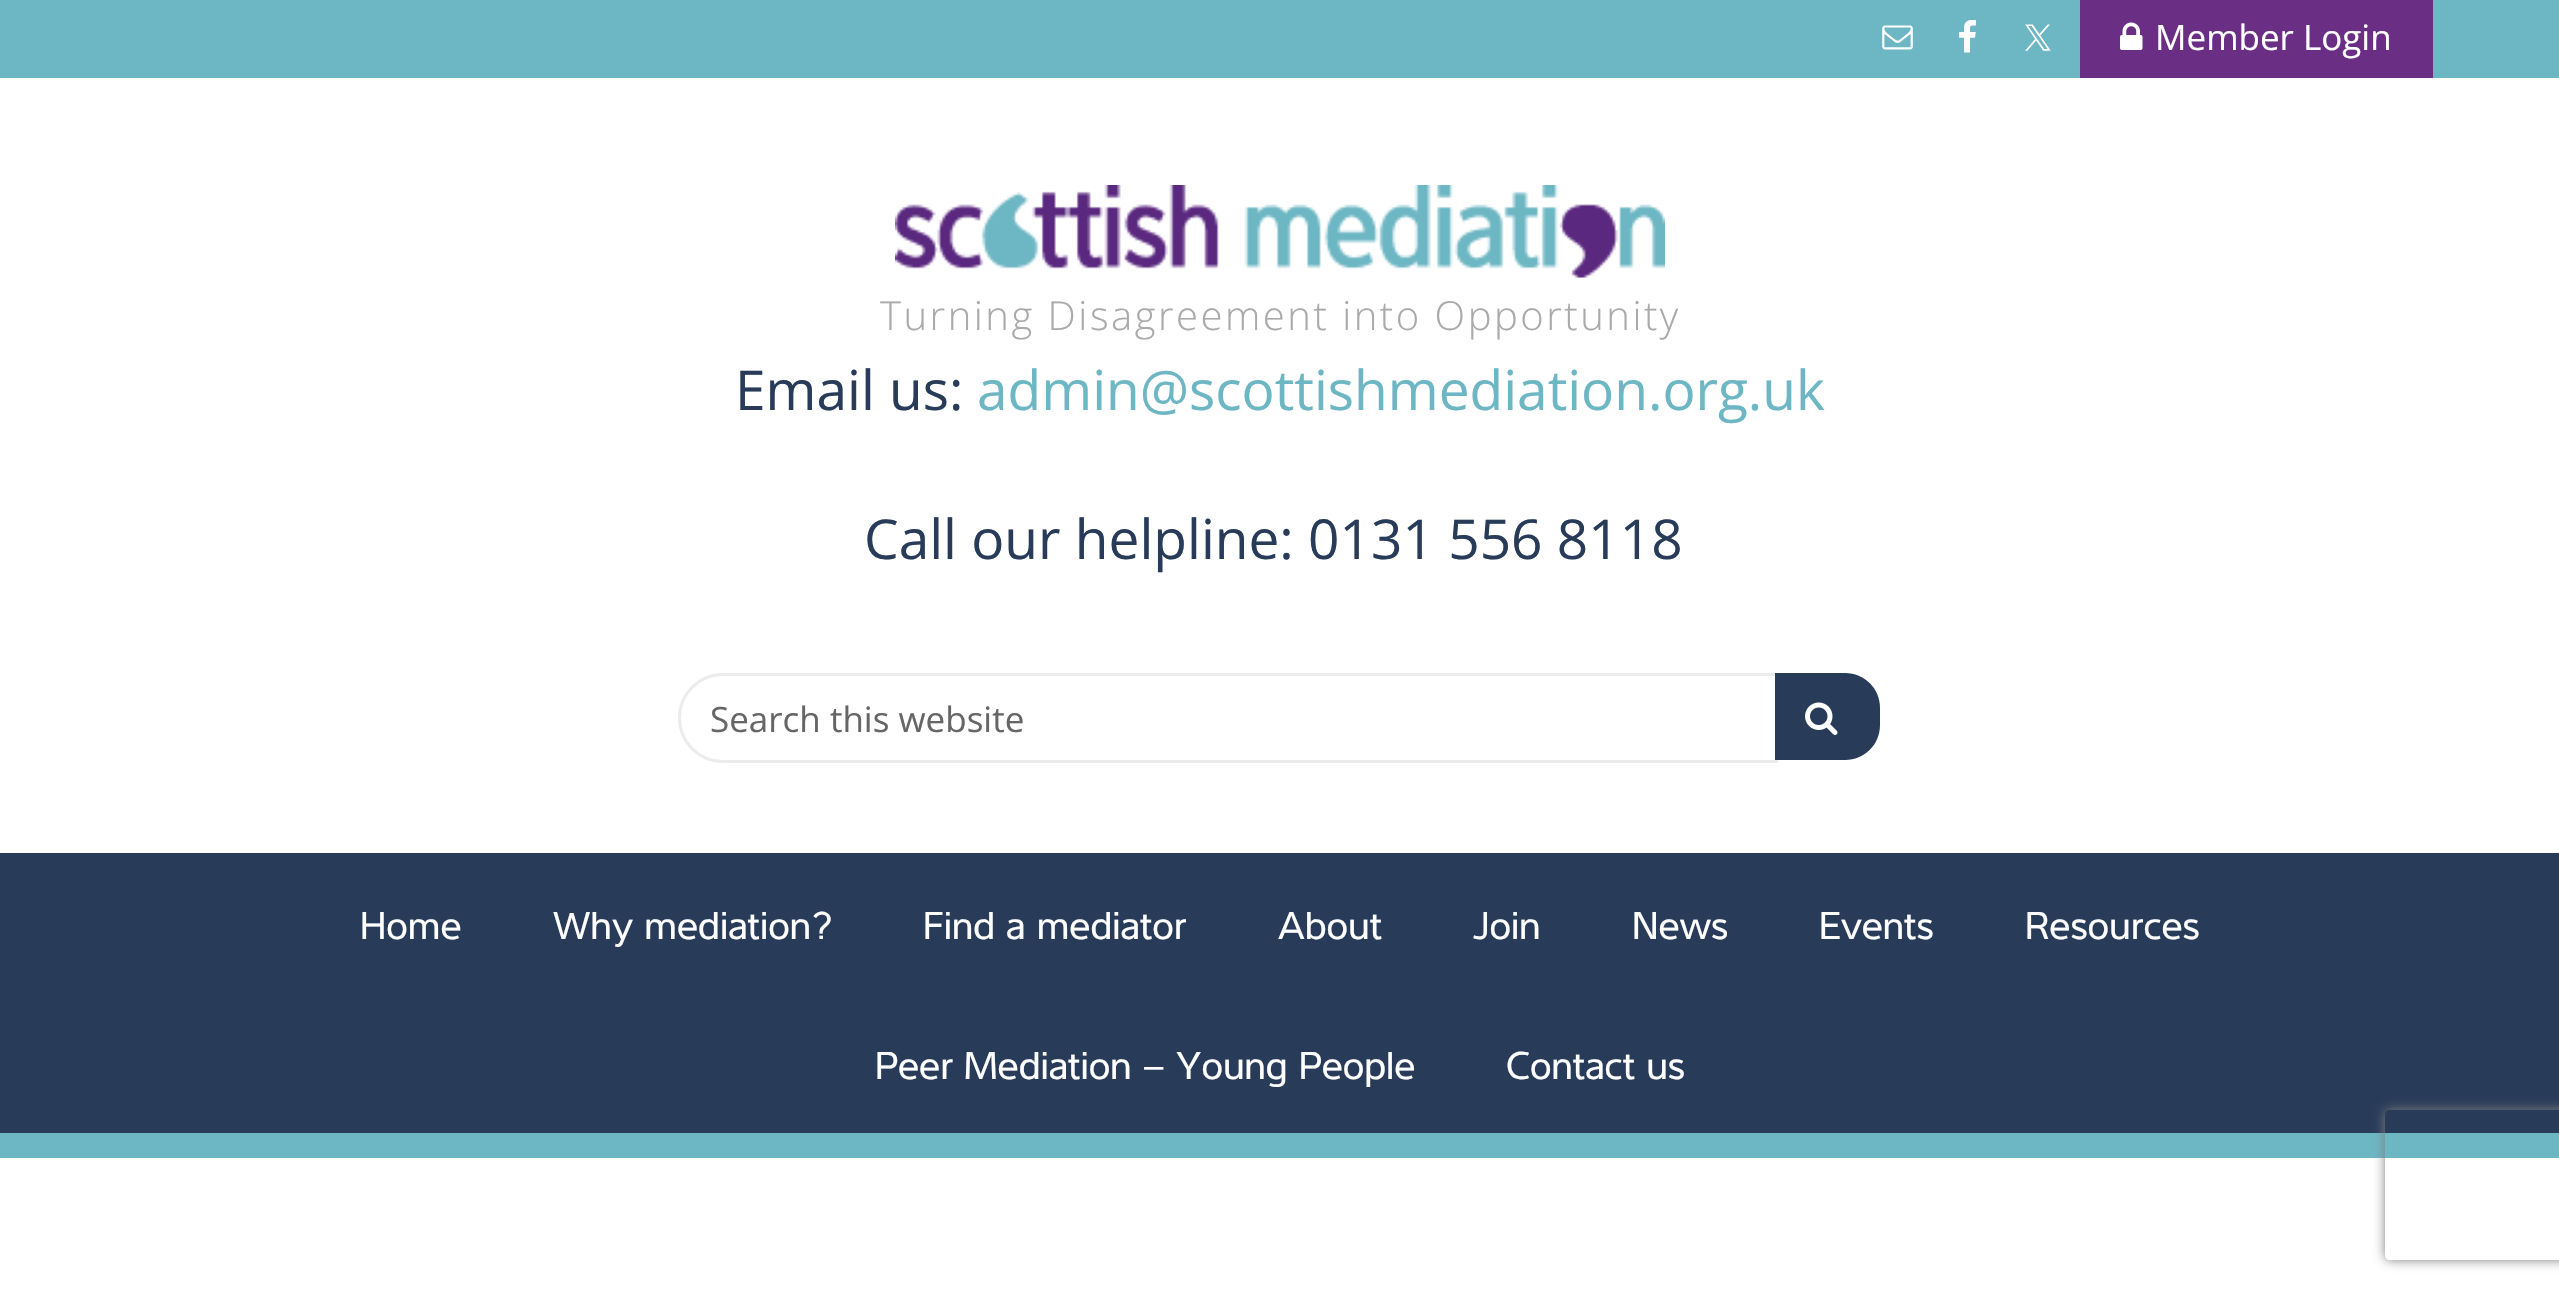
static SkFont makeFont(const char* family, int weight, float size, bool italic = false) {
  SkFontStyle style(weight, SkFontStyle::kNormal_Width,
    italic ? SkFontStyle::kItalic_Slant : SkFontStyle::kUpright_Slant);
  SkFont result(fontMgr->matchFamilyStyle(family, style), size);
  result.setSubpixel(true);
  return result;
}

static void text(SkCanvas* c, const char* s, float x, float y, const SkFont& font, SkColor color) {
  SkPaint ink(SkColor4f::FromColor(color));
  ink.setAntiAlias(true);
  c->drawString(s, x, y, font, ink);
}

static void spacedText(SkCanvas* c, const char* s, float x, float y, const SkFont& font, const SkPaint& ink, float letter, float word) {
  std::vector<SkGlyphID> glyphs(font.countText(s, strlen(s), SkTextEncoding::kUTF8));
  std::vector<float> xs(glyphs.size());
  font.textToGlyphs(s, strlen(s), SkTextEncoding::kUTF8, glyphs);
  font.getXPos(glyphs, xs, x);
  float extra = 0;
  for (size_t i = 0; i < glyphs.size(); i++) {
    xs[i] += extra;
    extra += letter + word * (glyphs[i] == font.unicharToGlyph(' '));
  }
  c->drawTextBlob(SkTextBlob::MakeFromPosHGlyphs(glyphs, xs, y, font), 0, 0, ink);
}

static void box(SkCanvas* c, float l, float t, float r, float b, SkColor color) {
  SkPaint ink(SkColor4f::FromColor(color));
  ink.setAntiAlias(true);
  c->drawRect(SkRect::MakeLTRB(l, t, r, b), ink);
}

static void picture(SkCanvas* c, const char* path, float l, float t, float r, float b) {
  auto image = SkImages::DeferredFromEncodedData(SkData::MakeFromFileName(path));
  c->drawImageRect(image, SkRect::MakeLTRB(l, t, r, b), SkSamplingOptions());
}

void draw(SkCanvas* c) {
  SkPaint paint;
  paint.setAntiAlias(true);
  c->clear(0xffffffff);
  box(c, 0, 0, 2559, 78, 0xff6db6c3);
  picture(c, "img_01.png", 1882, 25, 1913, 50);
  picture(c, "img_02.png", 1959, 20, 1976, 53);
  picture(c, "img_03.png", 2025, 24, 2051, 51);
  box(c, 2080, 0, 2433, 78, 0xff6a2f85);
  picture(c, "img_04.png", 2120, 22, 2143, 50);
  SkFont face1 = makeFont("Open Sans", 400, 35);
  text(c, "Member Login", 2155, 50, face1, 0xffffffff);
  picture(c, "img_05.png", 895, 185, 1665, 278);
  SkFont face2 = makeFont("Open Sans", 300, 40);
  paint.setColor(0xffaaaaaa);
  spacedText(c, "Turning Disagreement into Opportunity", 880, 330, face2, paint, 2.5f, 0);
  SkFont face3 = makeFont("Open Sans", 400, 55);
  text(c, "Email us:", 735, 410, face3, 0xff283b59);
  text(c, "admin@scottishmediation.org.uk", 977, 410, face3, 0xff6db6c3);
  text(c, "Call our helpline: 0131 556 8118", 864, 559, face3, 0xff283b59);
  paint.setStyle(SkPaint::kStroke_Style);
  paint.setStrokeWidth(3);
  paint.setColor(0xffececec);
  c->drawPath(SkPathBuilder().moveTo(723, 674.5f).lineTo(1776.5f, 674.5f).lineTo(1776.5f, 761.5f).lineTo(723, 761.5f).cubicTo(699, 761.5f, 679.5f, 742, 679.5f, 718).cubicTo(679.5f, 694, 699, 674.5f, 723, 674.5f).close().detach(), paint);
  text(c, "Search this website", 710, 732, face1, 0xff666666);
  paint.setStyle(SkPaint::kFill_Style);
  paint.setColor(0xff283b59);
  c->drawPath(SkPathBuilder().moveTo(1775, 673).lineTo(1845, 673).cubicTo(1864.5f, 673, 1880, 688.5f, 1880, 708).lineTo(1880, 725).cubicTo(1880, 744.5f, 1864.5f, 760, 1845, 760).lineTo(1775, 760).close().detach(), paint);
  picture(c, "img_06.png", 1805, 702, 1838, 735);
  box(c, 0, 853, 2559, 1133, 0xff283b59);
  SkFont face4 = makeFont("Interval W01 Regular", 400, 40);
  text(c, "Home", 360, 939, face4, 0xffffffff);
  text(c, "Why mediation?", 553, 939, face4, 0xffffffff);
  text(c, "Find a mediator", 923, 939, face4, 0xffffffff);
  text(c, "About", 1278, 939, face4, 0xffffffff);
  text(c, "Join", 1473, 939, face4, 0xffffffff);
  text(c, "News", 1632, 939, face4, 0xffffffff);
  text(c, "Events", 1819, 939, face4, 0xffffffff);
  text(c, "Resources", 2025, 939, face4, 0xffffffff);
  text(c, "Peer Mediation – Young People", 875, 1079, face4, 0xffffffff);
  text(c, "Contact us", 1506, 1079, face4, 0xffffffff);
  box(c, 0, 1133, 2559, 1158, 0xff6db6c3);
  c->save();
  c->clipPath(SkPathBuilder(SkPathFillType::kEvenOdd).moveTo(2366, 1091).lineTo(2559, 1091).lineTo(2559, 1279).lineTo(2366, 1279).close().moveTo(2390, 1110).lineTo(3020, 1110).cubicTo(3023, 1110, 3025, 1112, 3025, 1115).lineTo(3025, 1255).cubicTo(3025, 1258, 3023, 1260, 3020, 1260).lineTo(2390, 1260).cubicTo(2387, 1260, 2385, 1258, 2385, 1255).lineTo(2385, 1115).cubicTo(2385, 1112, 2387, 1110, 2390, 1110).close().detach(), true);
  paint.setColor(0xff808080);
  paint.setMaskFilter(SkMaskFilter::MakeBlur(kNormal_SkBlurStyle, 6));
  c->drawRoundRect(SkRect::MakeLTRB(2385, 1110, 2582, 1260), 5, 5, paint);
  paint.setMaskFilter(nullptr);
  c->restore();
}
